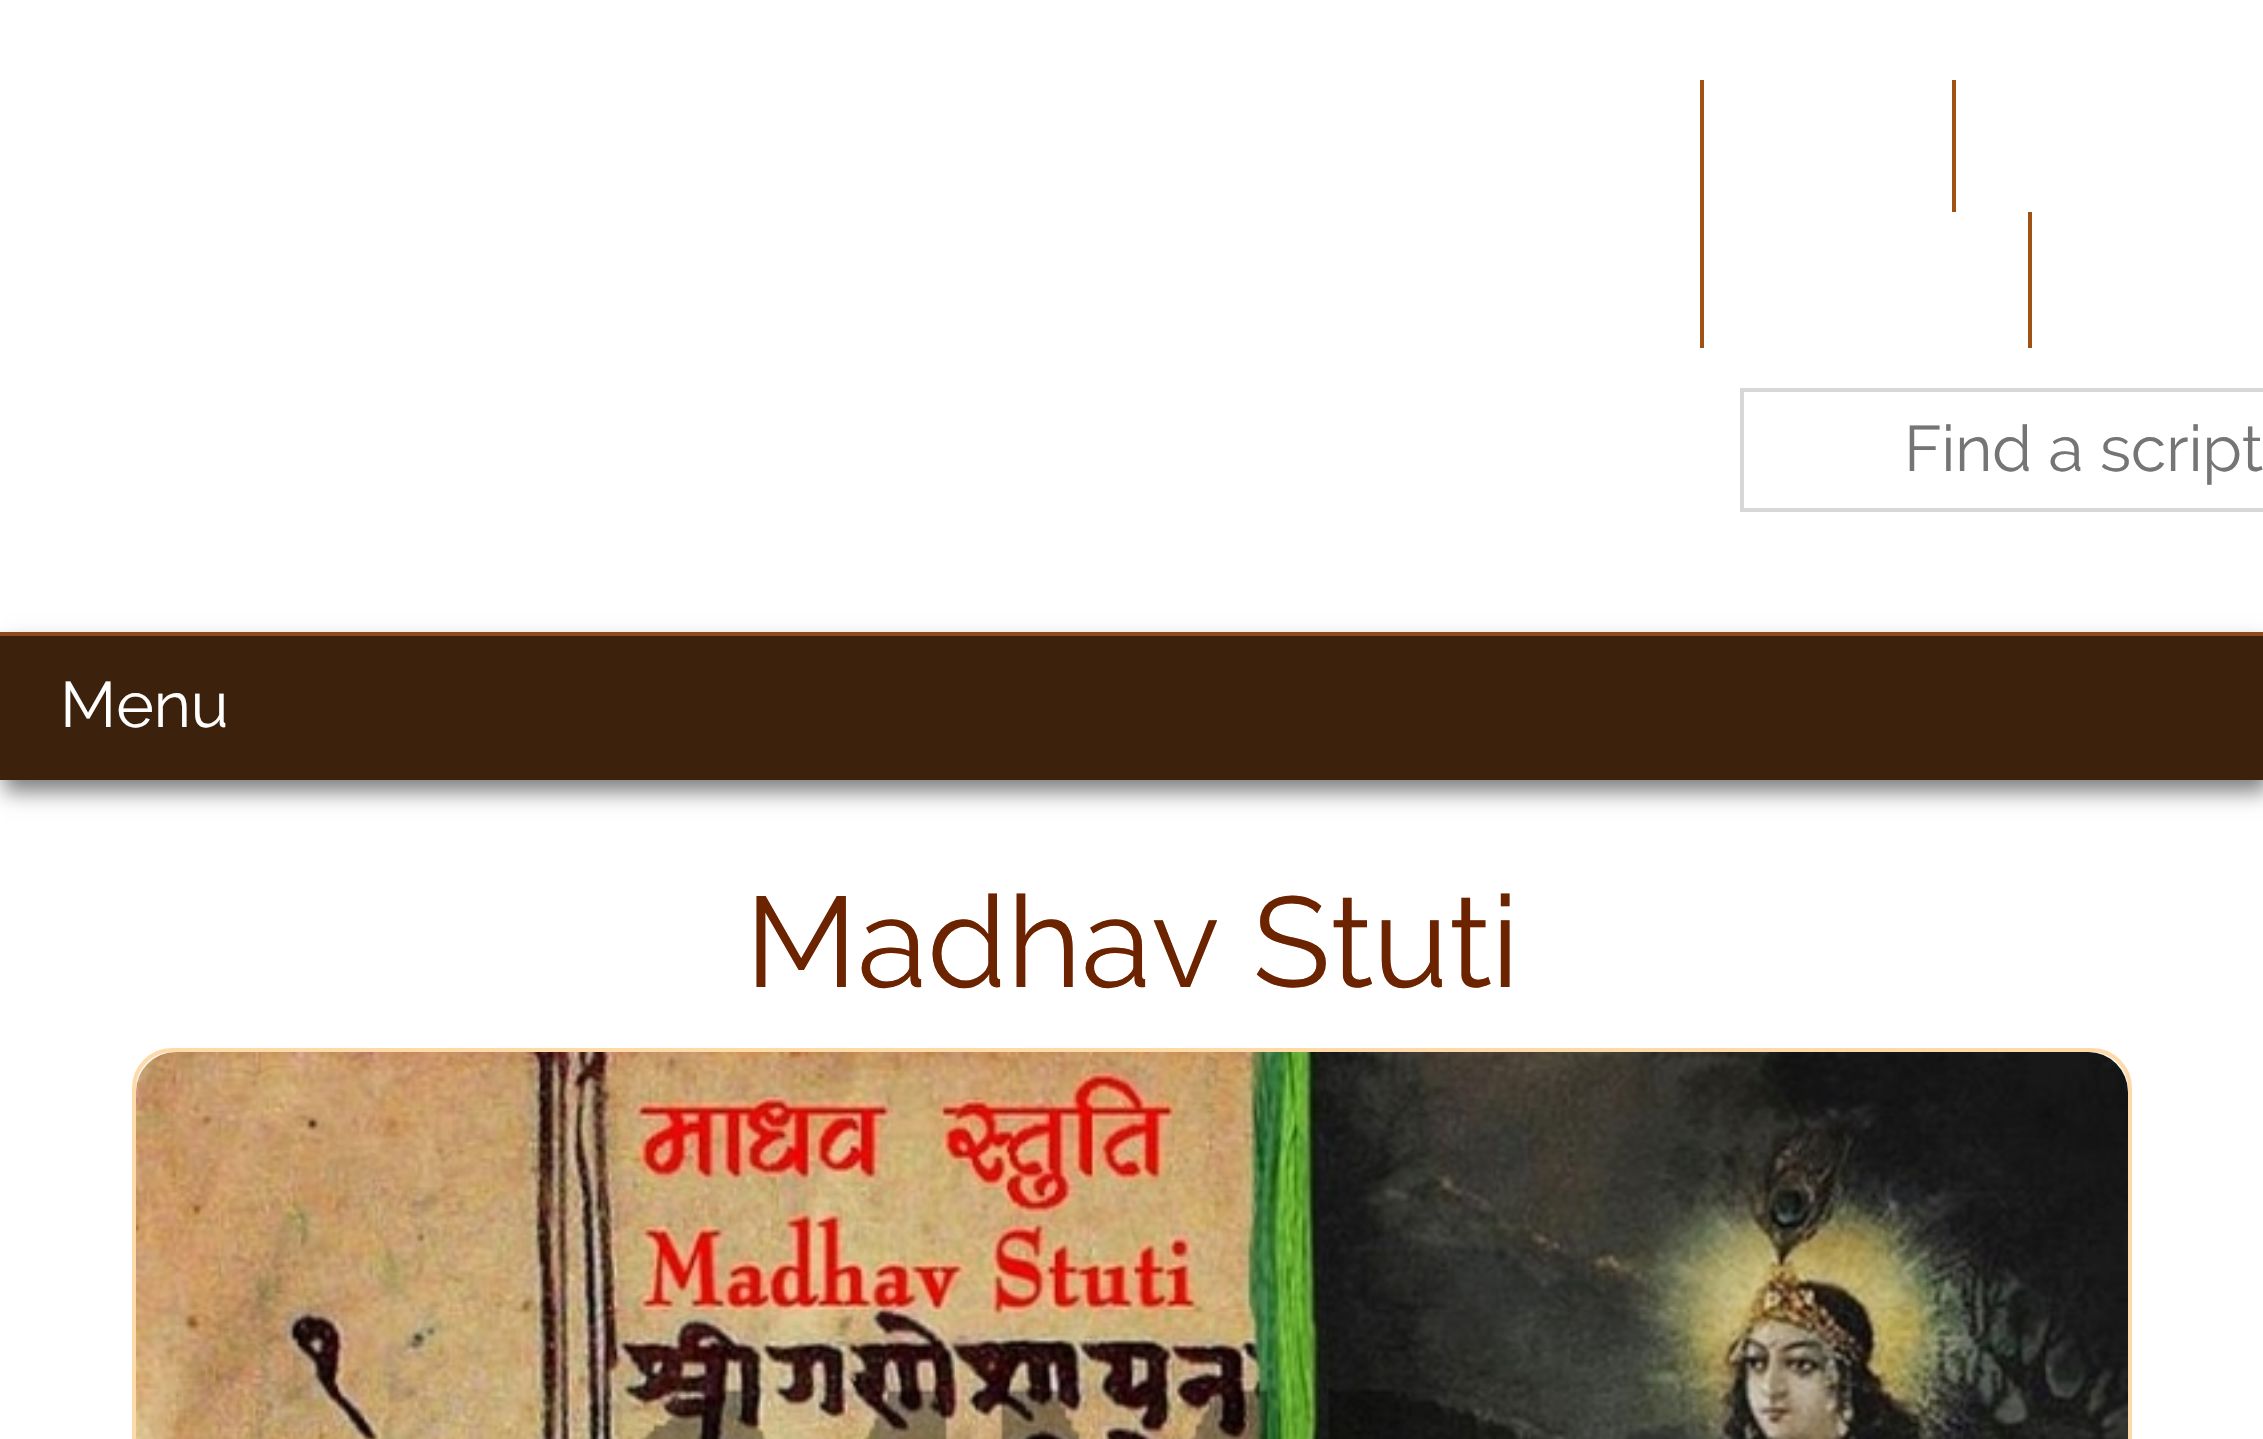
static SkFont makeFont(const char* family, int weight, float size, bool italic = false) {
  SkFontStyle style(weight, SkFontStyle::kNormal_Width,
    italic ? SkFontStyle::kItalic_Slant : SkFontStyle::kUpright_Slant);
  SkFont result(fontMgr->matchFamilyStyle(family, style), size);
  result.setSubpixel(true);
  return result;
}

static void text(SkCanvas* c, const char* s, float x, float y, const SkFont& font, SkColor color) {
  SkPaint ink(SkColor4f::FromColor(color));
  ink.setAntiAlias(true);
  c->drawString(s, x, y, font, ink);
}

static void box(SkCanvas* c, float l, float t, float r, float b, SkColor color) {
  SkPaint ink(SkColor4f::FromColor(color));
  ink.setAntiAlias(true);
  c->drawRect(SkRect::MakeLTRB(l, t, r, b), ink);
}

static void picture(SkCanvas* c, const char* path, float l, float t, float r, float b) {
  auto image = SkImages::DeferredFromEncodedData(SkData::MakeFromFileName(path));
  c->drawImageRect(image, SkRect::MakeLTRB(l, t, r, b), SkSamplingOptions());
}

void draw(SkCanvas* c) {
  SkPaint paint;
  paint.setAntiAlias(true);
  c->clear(0xffffffff);
  box(c, 1700, 80, 1704, 348, 0xff9f5213);
  box(c, 1952, 80, 1956, 212, 0xff9f5213);
  box(c, 2028, 212, 2032, 348, 0xff9f5213);
  paint.setStyle(SkPaint::kStroke_Style);
  paint.setStrokeWidth(4);
  paint.setColor(0xffd7d7d7);
  c->drawRect(SkRect::MakeLTRB(1742, 390, 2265, 510), paint);
  SkFont face1 = makeFont("Raleway", 400, 64);
  text(c, "Find a script", 1904, 471, face1, 0xff757575);
  paint.setStyle(SkPaint::kFill_Style);
  paint.setColor(0x80000000);
  paint.setMaskFilter(SkMaskFilter::MakeBlur(kNormal_SkBlurStyle, 10));
  c->drawRect(SkRect::MakeLTRB(4, 644, 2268, 792), paint);
  paint.setMaskFilter(nullptr);
  box(c, 0, 636, 2263, 780, 0xff3c210c);
  box(c, 0, 632, 2263, 636, 0xff8d4a1d);
  text(c, "Menu", 60, 727, face1, 0xffffffff);
  SkFont face2 = makeFont("Raleway", 400, 128);
  text(c, "Madhav Stuti", 745, 987, face2, 0xff6b2300);
  paint.setColor(0xfff7f3ed);
  c->drawRoundRect(SkRect::MakeLTRB(134, 1050, 2130, 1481), 38, 38, paint);
  paint.setStyle(SkPaint::kStroke_Style);
  paint.setColor(0xffffdaa9);
  c->drawRoundRect(SkRect::MakeLTRB(134, 1050, 2130, 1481), 38, 38, paint);
  picture(c, "img_01.png", 136, 1052, 2128, 1439);
}
